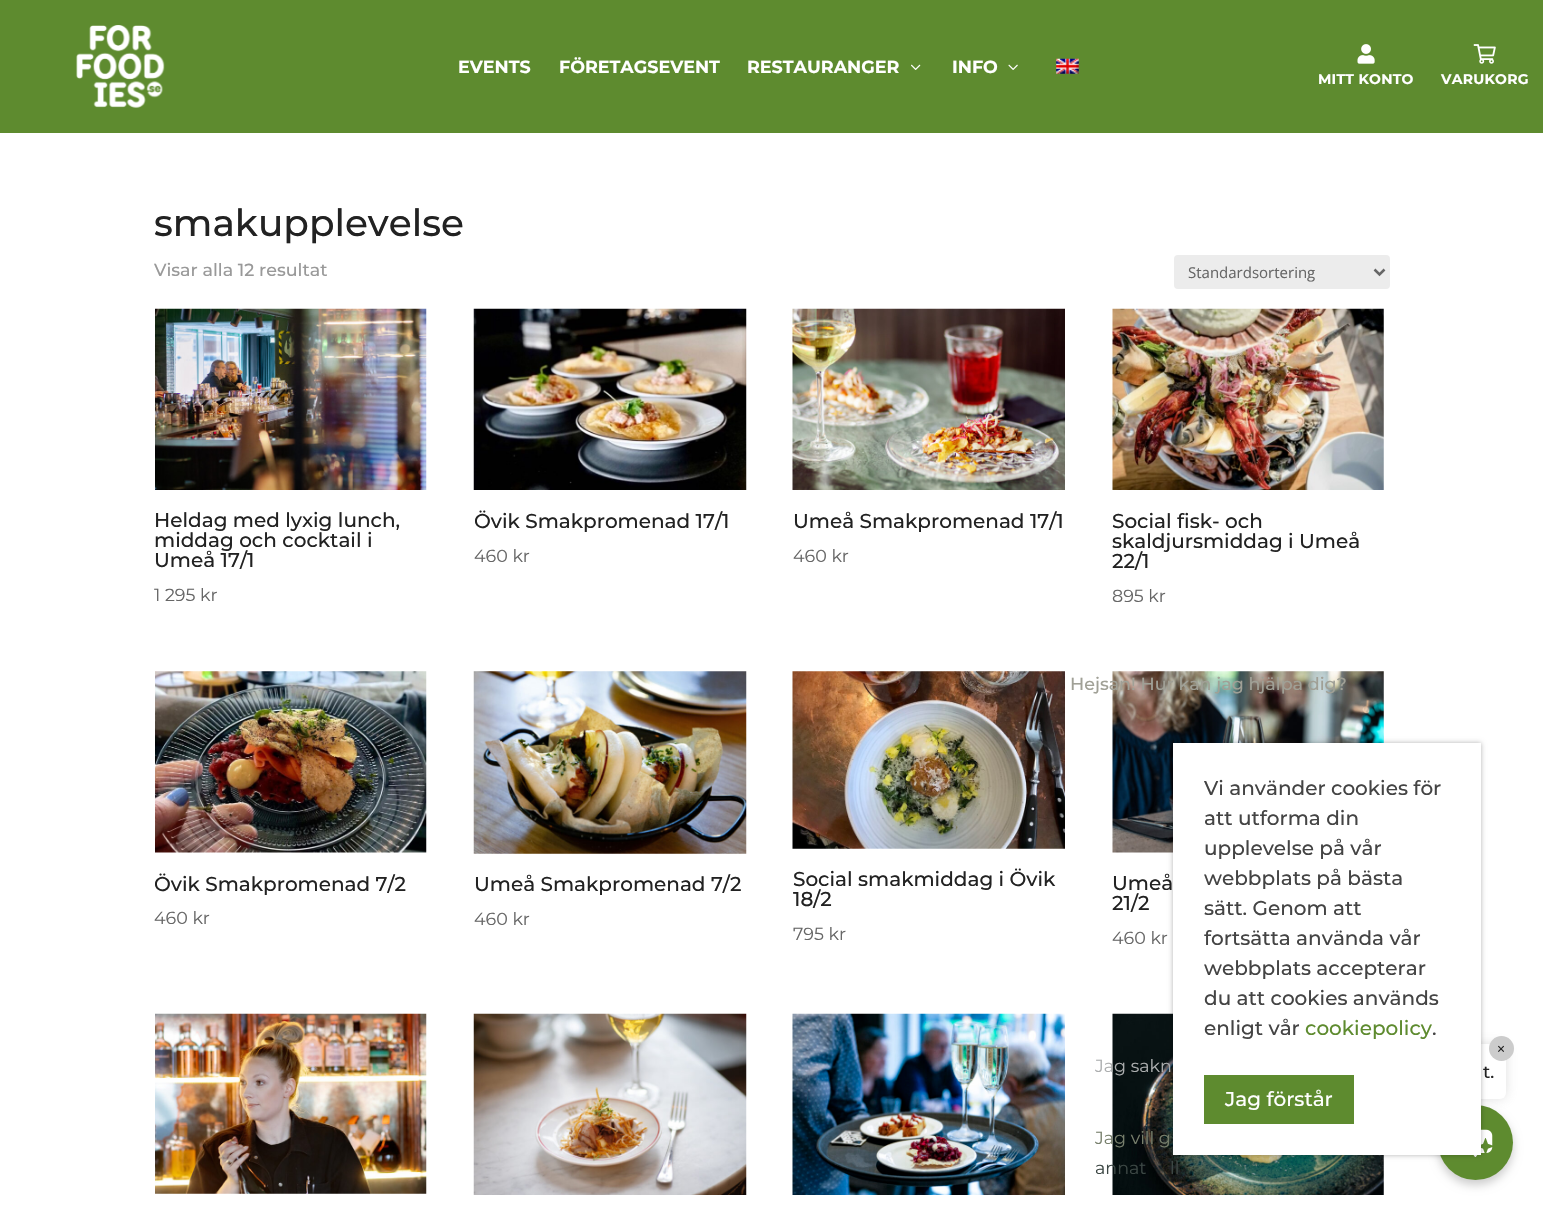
static SkFont makeFont(const char* family, int weight, float size, bool italic = false) {
  SkFontStyle style(weight, SkFontStyle::kNormal_Width,
    italic ? SkFontStyle::kItalic_Slant : SkFontStyle::kUpright_Slant);
  SkFont result(fontMgr->matchFamilyStyle(family, style), size);
  result.setSubpixel(true);
  return result;
}

static void text(SkCanvas* c, const char* s, float x, float y, const SkFont& font, SkColor color) {
  SkPaint ink(SkColor4f::FromColor(color));
  ink.setAntiAlias(true);
  c->drawString(s, x, y, font, ink);
}

static void spacedText(SkCanvas* c, const char* s, float x, float y, const SkFont& font, const SkPaint& ink, float letter, float word) {
  std::vector<SkGlyphID> glyphs(font.countText(s, strlen(s), SkTextEncoding::kUTF8));
  std::vector<float> xs(glyphs.size());
  font.textToGlyphs(s, strlen(s), SkTextEncoding::kUTF8, glyphs);
  font.getXPos(glyphs, xs, x);
  float extra = 0;
  for (size_t i = 0; i < glyphs.size(); i++) {
    xs[i] += extra;
    extra += letter + word * (glyphs[i] == font.unicharToGlyph(' '));
  }
  c->drawTextBlob(SkTextBlob::MakeFromPosHGlyphs(glyphs, xs, y, font), 0, 0, ink);
}

static void box(SkCanvas* c, float l, float t, float r, float b, SkColor color) {
  SkPaint ink(SkColor4f::FromColor(color));
  ink.setAntiAlias(true);
  c->drawRect(SkRect::MakeLTRB(l, t, r, b), ink);
}

static void roundBox(SkCanvas* c, float l, float t, float r, float b, float radius, SkColor color) {
  SkPaint ink(SkColor4f::FromColor(color));
  ink.setAntiAlias(true);
  c->drawRoundRect(SkRect::MakeLTRB(l, t, r, b), radius, radius, ink);
}

static void picture(SkCanvas* c, const char* path, float l, float t, float r, float b) {
  auto image = SkImages::DeferredFromEncodedData(SkData::MakeFromFileName(path));
  c->drawImageRect(image, SkRect::MakeLTRB(l, t, r, b), SkSamplingOptions());
}

void draw(SkCanvas* c) {
  SkPaint paint;
  paint.setAntiAlias(true);
  c->clear(0xffffffff);
  box(c, 0, 0, 1543, 133, 0xff5e8b2f);
  picture(c, "img_01.png", 76, 25, 165, 108);
  SkFont face1 = makeFont("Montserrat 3", 100, 17.5f);
  text(c, "EVENTS", 458, 73, face1, 0xffffffff);
  text(c, "FÖRETAGSEVENT", 559, 73, face1, 0xffffffff);
  text(c, "RESTAURANGER", 747, 73, face1, 0xffffffff);
  picture(c, "img_02.png", 911, 64, 921, 70);
  text(c, "INFO", 952, 73, face1, 0xffffffff);
  picture(c, "img_03.png", 1008, 64, 1018, 70);
  picture(c, "img_04.png", 1056, 58, 1079, 74);
  picture(c, "img_05.png", 1357, 44, 1375, 64);
  SkFont face2 = makeFont("Montserrat 3", 100, 14);
  paint.setColor(0xffffffff);
  spacedText(c, "MITT KONTO", 1318, 84, face2, paint, 0.25f, 0);
  picture(c, "img_06.png", 1473, 44, 1496, 64);
  spacedText(c, "VARUKORG", 1441, 84, face2, paint, 0.25f, 0);
  SkFont face3 = makeFont("Montserrat", 100, 37.5f);
  text(c, "smakupplevelse", 154, 236, face3, 0xff222222);
  SkFont face4 = makeFont("Montserrat", 100, 17.5f);
  text(c, "Visar alla 12 resultat", 154, 276, face4, 0xff999999);
  roundBox(c, 1174, 255, 1390, 289, 4, 0xffececec);
  paint.setStyle(SkPaint::kStroke_Style);
  paint.setStrokeWidth(2.5f);
  paint.setColor(0xff666666);
  c->drawPath(SkPathBuilder().moveTo(1374.5f, 269.5f).lineTo(1379.5f, 274.5f).lineTo(1384.5f, 269.5f).detach(), paint);
  SkFont face5 = makeFont("Open Sans", 400, 15);
  text(c, "Standardsortering", 1188, 278, face5, 0xff666666);
  picture(c, "img_07.png", 155, 308, 427, 490);
  SkFont face6 = makeFont("Montserrat", 100, 20);
  text(c, "Heldag med lyxig lunch,", 154, 527, face6, 0xff222222);
  text(c, "middag och cocktail i", 154, 547, face6, 0xff222222);
  text(c, "Umeå 17/1", 154, 567, face6, 0xff222222);
  SkFont face7 = makeFont("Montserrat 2", 100, 17.5f);
  text(c, "1 295 kr", 154, 601, face7, 0xff666666);
  picture(c, "img_08.png", 473, 308, 747, 490);
  text(c, "Övik Smakpromenad 17/1", 474, 528, face6, 0xff222222);
  text(c, "460 kr", 474, 562, face7, 0xff666666);
  picture(c, "img_09.png", 792, 308, 1065, 490);
  text(c, "Umeå Smakpromenad 17/1", 793, 528, face6, 0xff222222);
  text(c, "460 kr", 793, 562, face7, 0xff666666);
  picture(c, "img_10.png", 1112, 308, 1384, 490);
  text(c, "Social fisk- och", 1112, 528, face6, 0xff222222);
  text(c, "skaldjursmiddag i Umeå", 1112, 548, face6, 0xff222222);
  text(c, "22/1", 1112, 568, face6, 0xff222222);
  text(c, "895 kr", 1112, 602, face7, 0xff666666);
  picture(c, "img_11.png", 155, 671, 427, 853);
  text(c, "Övik Smakpromenad 7/2", 154, 891, face6, 0xff222222);
  text(c, "460 kr", 154, 924, face7, 0xff666666);
  picture(c, "img_12.png", 473, 671, 747, 854);
  text(c, "Umeå Smakpromenad 7/2", 474, 891, face6, 0xff222222);
  text(c, "460 kr", 474, 925, face7, 0xff666666);
  picture(c, "img_13.png", 792, 671, 1065, 849);
  text(c, "Social smakmiddag i Övik", 793, 886, face6, 0xff222222);
  text(c, "18/2", 793, 906, face6, 0xff222222);
  text(c, "795 kr", 793, 940, face7, 0xff666666);
  picture(c, "img_14.png", 1112, 671, 1384, 853);
  text(c, "Umeå", 1112, 890, face6, 0xff222222);
  text(c, "21/2", 1112, 910, face6, 0xff222222);
  text(c, "460 kr", 1112, 944, face7, 0xff666666);
  picture(c, "img_15.png", 155, 1013, 427, 1194);
  picture(c, "img_16.png", 473, 1013, 747, 1195);
  picture(c, "img_17.png", 792, 1013, 1065, 1195);
  picture(c, "img_18.png", 1112, 1013, 1384, 1195);
  text(c, "Hejsan! Hur kan jag hjälpa dig?", 1070, 690, face4, 0xffa0a096);
  paint.setStyle(SkPaint::kFill_Style);
  paint.setColor(0x4d969696);
  paint.setMaskFilter(SkMaskFilter::MakeBlur(kNormal_SkBlurStyle, 6));
  c->drawRoundRect(SkRect::MakeLTRB(1188, 1044, 1506, 1099), 6, 6, paint);
  paint.setMaskFilter(nullptr);
  text(c, "Jag sakn", 1095, 1072, face7, 0xffacaeaf);
  text(c, "Jag vill g", 1095, 1144, face7, 0xff777f6c);
  text(c, "annat", 1095, 1174, face7, 0xff3c4744);
  text(c, "ll", 1170, 1174, face7, 0xff3c4744);
  roundBox(c, 1188, 1044, 1506, 1099, 6, 0xffffffff);
  paint.setColor(0xffcccccc);
  c->drawCircle(1501.5f, 1048.5f, 12.5f, paint);
  text(c, "×", 1496, 1055, face7, 0xff222222);
  text(c, "t.", 1483, 1078, face4, 0xff222222);
  paint.setColor(0x33000000);
  paint.setMaskFilter(SkMaskFilter::MakeBlur(kNormal_SkBlurStyle, 5));
  c->drawRoundRect(SkRect::MakeLTRB(1438, 1110, 1513, 1185), 37.5f, 37.5f, paint);
  paint.setMaskFilter(nullptr);
  paint.setColor(0xff5e8b2f);
  c->drawCircle(1475.5f, 1142.5f, 37.5f, paint);
  picture(c, "img_19.png", 1473, 1129, 1493, 1157);
  paint.setColor(0x4d000000);
  paint.setMaskFilter(SkMaskFilter::MakeBlur(kNormal_SkBlurStyle, 2.5f));
  c->drawRect(SkRect::MakeLTRB(1173, 743, 1481, 1155), paint);
  paint.setMaskFilter(nullptr);
  box(c, 1173, 743, 1481, 1155, 0xffffffff);
  text(c, "Vi använder cookies för", 1204, 795, face6, 0xff444444);
  text(c, "att utforma din", 1204, 825, face6, 0xff444444);
  text(c, "upplevelse på vår", 1204, 855, face6, 0xff444444);
  text(c, "webbplats på bästa", 1204, 885, face6, 0xff444444);
  text(c, "sätt. Genom att", 1204, 915, face6, 0xff444444);
  text(c, "fortsätta använda vår", 1204, 945, face6, 0xff444444);
  text(c, "webbplats accepterar", 1204, 975, face6, 0xff444444);
  text(c, "du att cookies används", 1204, 1005, face6, 0xff444444);
  text(c, "enligt vår", 1204, 1035, face6, 0xff444444);
  text(c, "cookiepolicy", 1305, 1035, face6, 0xff5e8b2f);
  text(c, ".", 1432, 1035, face6, 0xff444444);
  box(c, 1204, 1075, 1354, 1124, 0xff5e8b2f);
  text(c, "Jag förstår", 1225, 1106, face6, 0xffffffff);
}
